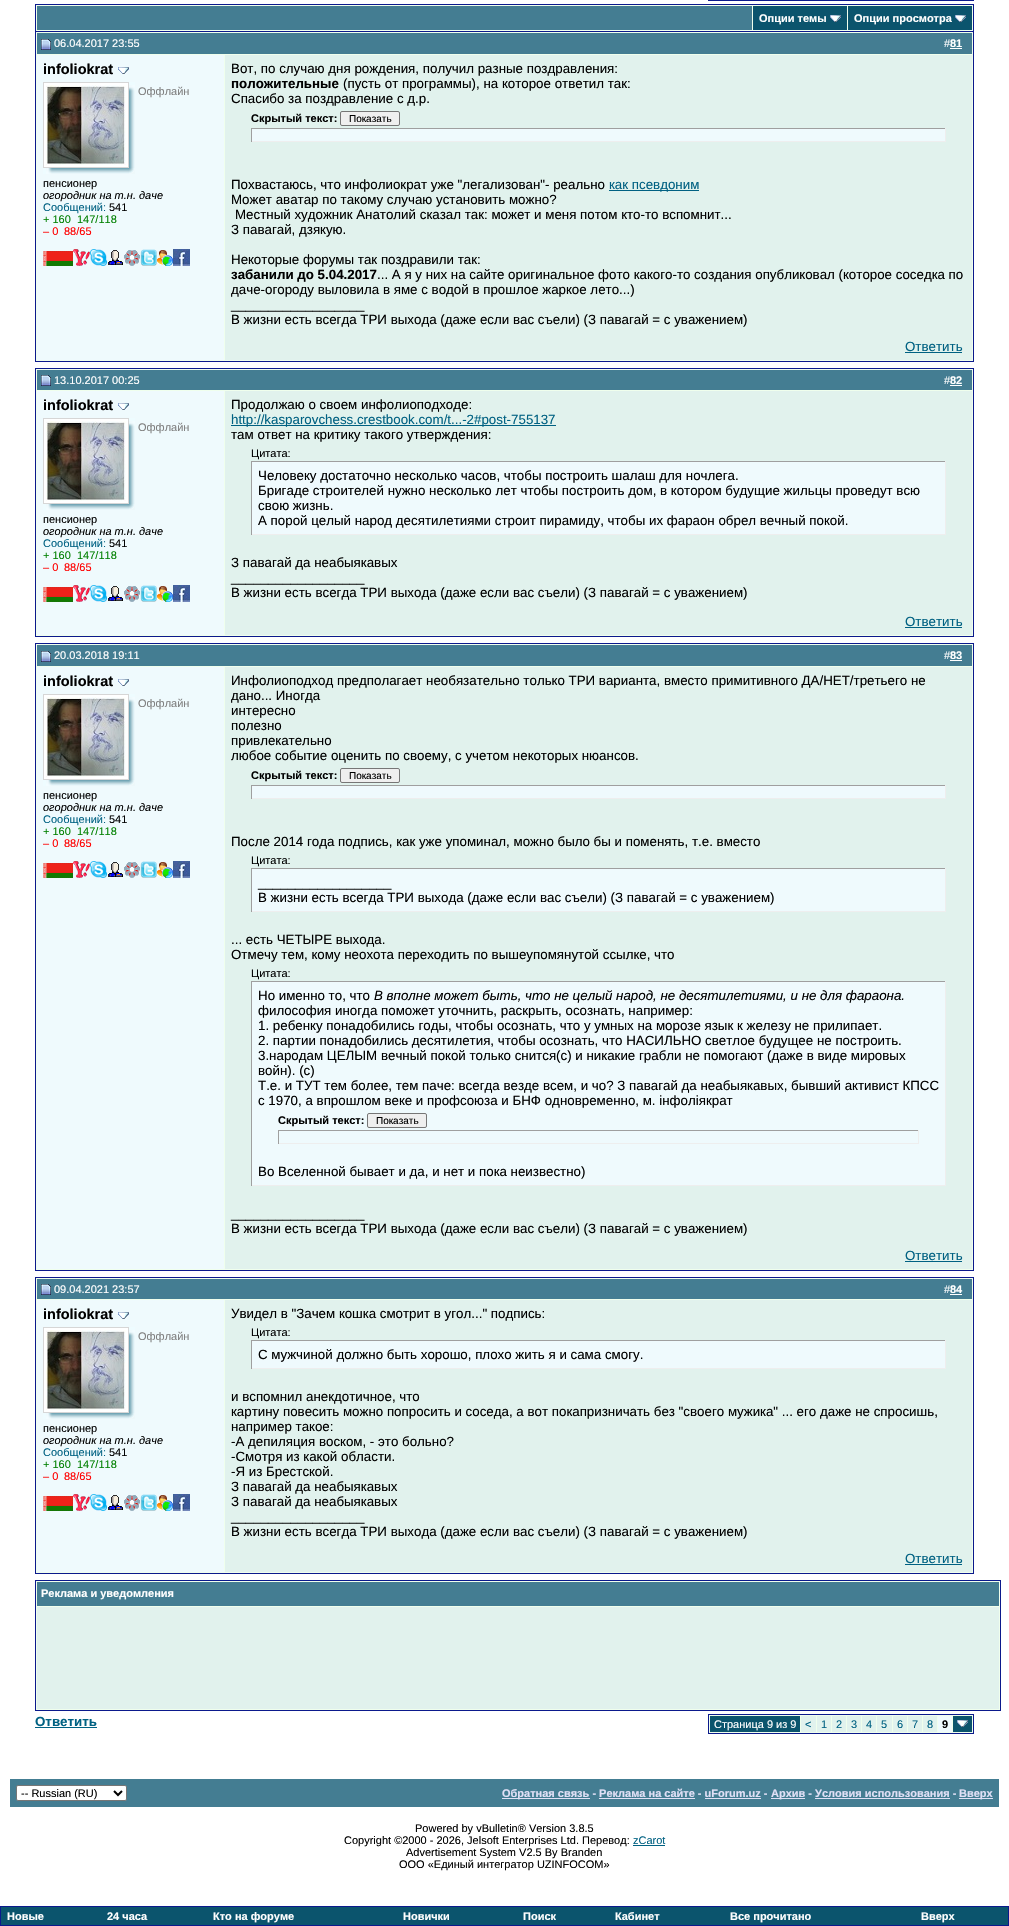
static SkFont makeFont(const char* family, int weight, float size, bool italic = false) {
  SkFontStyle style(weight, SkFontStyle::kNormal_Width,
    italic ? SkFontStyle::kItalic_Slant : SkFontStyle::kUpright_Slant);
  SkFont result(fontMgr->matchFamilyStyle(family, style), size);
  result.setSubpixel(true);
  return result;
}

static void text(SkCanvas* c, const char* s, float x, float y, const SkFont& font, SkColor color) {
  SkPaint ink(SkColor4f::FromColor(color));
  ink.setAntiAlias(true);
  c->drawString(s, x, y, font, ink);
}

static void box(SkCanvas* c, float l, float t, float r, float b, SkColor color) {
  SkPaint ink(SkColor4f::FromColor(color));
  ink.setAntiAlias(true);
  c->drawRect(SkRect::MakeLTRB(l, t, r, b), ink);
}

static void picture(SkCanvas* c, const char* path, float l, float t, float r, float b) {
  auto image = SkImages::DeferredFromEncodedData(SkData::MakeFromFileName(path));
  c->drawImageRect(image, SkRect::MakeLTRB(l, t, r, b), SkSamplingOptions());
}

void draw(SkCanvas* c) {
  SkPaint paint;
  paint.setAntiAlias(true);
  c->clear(0xffffffff);
  paint.setStyle(SkPaint::kStroke_Style);
  paint.setStrokeWidth(1);
  paint.setColor(0xff0b198c);
  c->drawRect(SkRect::MakeLTRB(708.5f, -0.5f, 973.5f, 0.5f), paint);
  box(c, 36, 5, 973, 31, 0xfff0ffed);
  box(c, 35, 4, 974, 5, 0xff0b198c);
  box(c, 973, 4, 974, 31, 0xff0b198c);
  box(c, 35, 4, 36, 31, 0xff0b198c);
  box(c, 37, 6, 752, 30, 0xff447d92);
  box(c, 753, 6, 847, 30, 0xff0b546d);
  SkFont face1 = makeFont("Liberation Sans", 700, 11);
  text(c, "Опции темы", 759, 22, face1, 0xffffffff);
  picture(c, "img_01.png", 830, 15, 841, 22);
  box(c, 848, 6, 972, 30, 0xff0b546d);
  text(c, "Опции просмотра", 854, 22, face1, 0xffffffff);
  picture(c, "img_01.png", 955, 15, 966, 22);
  c->drawRect(SkRect::MakeLTRB(35.5f, 31.5f, 973.5f, 361.5f), paint);
  box(c, 37, 33, 972, 54, 0xff447d92);
  box(c, 36, 32, 973, 33, 0xfff0ffed);
  box(c, 36, 54, 225, 55, 0xfff0ffed);
  box(c, 36, 32, 37, 333, 0xfff0ffed);
  picture(c, "img_02.png", 41, 39, 51, 50);
  SkFont face2 = makeFont("Liberation Sans", 400, 11);
  text(c, "06.04.2017 23:55", 54, 47, face2, 0xffffffff);
  box(c, 972, 32, 973, 361, 0xfff0ffed);
  box(c, 225, 54, 973, 55, 0xfff0ffed);
  text(c, "#", 944, 47, face2, 0xffffffff);
  text(c, "81", 950, 47, face1, 0xffffffff);
  box(c, 950, 48, 962, 49, 0xffffffff);
  box(c, 37, 55, 224, 360, 0xffeffafd);
  box(c, 224, 55, 225, 361, 0xfff0ffed);
  SkFont face3 = makeFont("Liberation Sans", 700, 14.5f);
  text(c, "infoliokrat", 43, 74, face3, 0xff000000);
  picture(c, "img_03.png", 118, 67, 129, 74);
  picture(c, "img_04.png", 46, 85, 135, 174);
  picture(c, "img_05.png", 43, 82, 135, 174);
  paint.setStyle(SkPaint::kFill_Style);
  paint.setColor(0xffffffff);
  c->drawRect(SkRect::MakeLTRB(43.5f, 82.5f, 128.5f, 167.5f), paint);
  paint.setStyle(SkPaint::kStroke_Style);
  paint.setColor(0xffd6d6d6);
  c->drawRect(SkRect::MakeLTRB(43.5f, 82.5f, 128.5f, 167.5f), paint);
  picture(c, "img_06.png", 46, 85, 126, 165);
  text(c, "Оффлайн", 138, 95, face2, 0xff808080);
  text(c, "пенсионер", 43, 187, face2, 0xff000000);
  SkFont face4 = makeFont("Liberation Sans", 400, 11, true);
  text(c, "огородник на т.н. даче", 43, 199, face4, 0xff000000);
  text(c, "Сообщений:", 43, 211, face2, 0xff006182);
  text(c, "541", 109, 211, face2, 0xff000000);
  text(c, "+ 160", 43, 223, face2, 0xff008000);
  text(c, "147/118", 77, 223, face2, 0xff008000);
  text(c, "– 0", 43, 235, face2, 0xffff0000);
  text(c, "88/65", 64, 235, face2, 0xffff0000);
  picture(c, "img_07.png", 43, 251, 73, 266);
  picture(c, "img_08.png", 73, 249, 90, 266);
  picture(c, "img_09.png", 90, 249, 107, 266);
  picture(c, "img_10.png", 108, 250, 123, 265);
  picture(c, "img_11.png", 124, 250, 140, 266);
  picture(c, "img_12.png", 140, 249, 157, 266);
  picture(c, "img_13.png", 157, 250, 173, 266);
  picture(c, "img_14.png", 173, 249, 190, 266);
  box(c, 225, 55, 972, 360, 0xffe1f2ed);
  SkFont face5 = makeFont("Liberation Sans", 400, 13.33f);
  text(c, "Вот, по случаю дня рождения, получил разные поздравления:", 231, 73, face5, 0xff000000);
  SkFont face6 = makeFont("Liberation Sans", 700, 13.33f);
  text(c, "положительные", 231, 88, face6, 0xff000000);
  text(c, "(пусть от программы), на которое ответил так:", 343, 88, face5, 0xff000000);
  text(c, "Спасибо за поздравление с д.р.", 231, 103, face5, 0xff000000);
  text(c, "Скрытый текст:", 251, 122, face1, 0xff000000);
  paint.setStyle(SkPaint::kFill_Style);
  paint.setColor(0xffefefef);
  c->drawRoundRect(SkRect::MakeLTRB(340.5f, 111.5f, 399.5f, 125.5f), 1.5f, 1.5f, paint);
  paint.setStyle(SkPaint::kStroke_Style);
  paint.setColor(0xff767676);
  c->drawRoundRect(SkRect::MakeLTRB(340.5f, 111.5f, 399.5f, 125.5f), 1.5f, 1.5f, paint);
  SkFont face7 = makeFont("Liberation Sans", 400, 10);
  text(c, "Показать", 349, 122, face7, 0xff000000);
  box(c, 252, 129, 945, 141, 0xffeffafd);
  box(c, 251, 128, 946, 129, 0xff9f9f9f);
  box(c, 945, 128, 946, 142, 0xffeeeeee);
  box(c, 251, 141, 946, 142, 0xffeeeeee);
  box(c, 251, 128, 252, 142, 0xff9f9f9f);
  text(c, "Похвастаюсь, что инфолиократ уже \"легализован\"- реально", 231, 189, face5, 0xff000000);
  box(c, 609, 190, 699, 191, 0xff006182);
  text(c, "как псевдоним", 609, 189, face5, 0xff006182);
  text(c, "Может аватар по такому случаю установить можно?", 231, 204, face5, 0xff000000);
  text(c, "Местный художник Анатолий сказал так: может и меня потом кто-то вспомнит...", 235, 219, face5, 0xff000000);
  text(c, "З павагай, дзякую.", 231, 234, face5, 0xff000000);
  text(c, "Некоторые форумы так поздравили так:", 231, 264, face5, 0xff000000);
  text(c, "забанили до 5.04.2017", 231, 279, face6, 0xff000000);
  text(c, "... А я у них на сайте оригинальное фото какого-то создания опубликовал (которое соседка по", 377, 279, face5, 0xff000000);
  text(c, "даче-огороду выловила в яме с водой в прошлое жаркое лето...)", 231, 294, face5, 0xff000000);
  text(c, "__________________", 231, 309, face5, 0xff000000);
  text(c, "В жизни есть всегда ТРИ выхода (даже если вас съели) (З павагай = с уважением)", 231, 324, face5, 0xff000000);
  box(c, 36, 360, 973, 361, 0xfff0ffed);
  box(c, 36, 333, 37, 361, 0xfff0ffed);
  text(c, "Ответить", 905, 351, face5, 0xff006182);
  box(c, 905, 352, 962, 353, 0xff006182);
  paint.setColor(0xff0b198c);
  c->drawRect(SkRect::MakeLTRB(35.5f, 368.5f, 973.5f, 636.5f), paint);
  box(c, 37, 370, 972, 390, 0xff447d92);
  box(c, 36, 369, 973, 370, 0xfff0ffed);
  box(c, 36, 390, 225, 391, 0xfff0ffed);
  box(c, 36, 369, 37, 608, 0xfff0ffed);
  picture(c, "img_02.png", 41, 375, 51, 386);
  text(c, "13.10.2017 00:25", 54, 384, face2, 0xffffffff);
  box(c, 972, 369, 973, 636, 0xfff0ffed);
  box(c, 225, 390, 973, 391, 0xfff0ffed);
  text(c, "#", 944, 384, face2, 0xffffffff);
  text(c, "82", 950, 384, face1, 0xffffffff);
  box(c, 950, 385, 962, 386, 0xffffffff);
  box(c, 37, 391, 224, 635, 0xffeffafd);
  box(c, 224, 391, 225, 636, 0xfff0ffed);
  text(c, "infoliokrat", 43, 410, face3, 0xff000000);
  picture(c, "img_03.png", 118, 403, 129, 410);
  picture(c, "img_04.png", 46, 421, 135, 510);
  picture(c, "img_05.png", 43, 418, 135, 510);
  paint.setStyle(SkPaint::kFill_Style);
  paint.setColor(0xffffffff);
  c->drawRect(SkRect::MakeLTRB(43.5f, 418.5f, 128.5f, 503.5f), paint);
  paint.setStyle(SkPaint::kStroke_Style);
  paint.setColor(0xffd6d6d6);
  c->drawRect(SkRect::MakeLTRB(43.5f, 418.5f, 128.5f, 503.5f), paint);
  picture(c, "img_06.png", 46, 421, 126, 501);
  text(c, "Оффлайн", 138, 431, face2, 0xff808080);
  text(c, "пенсионер", 43, 523, face2, 0xff000000);
  text(c, "огородник на т.н. даче", 43, 535, face4, 0xff000000);
  text(c, "Сообщений:", 43, 547, face2, 0xff006182);
  text(c, "541", 109, 547, face2, 0xff000000);
  text(c, "+ 160", 43, 559, face2, 0xff008000);
  text(c, "147/118", 77, 559, face2, 0xff008000);
  text(c, "– 0", 43, 571, face2, 0xffff0000);
  text(c, "88/65", 64, 571, face2, 0xffff0000);
  picture(c, "img_07.png", 43, 587, 73, 602);
  picture(c, "img_08.png", 73, 585, 90, 602);
  picture(c, "img_09.png", 90, 585, 107, 602);
  picture(c, "img_10.png", 108, 586, 123, 601);
  picture(c, "img_11.png", 124, 586, 140, 602);
  picture(c, "img_12.png", 140, 585, 157, 602);
  picture(c, "img_13.png", 157, 586, 173, 602);
  picture(c, "img_14.png", 173, 585, 190, 602);
  box(c, 225, 391, 972, 635, 0xffe1f2ed);
  text(c, "Продолжаю о своем инфолиоподходе:", 231, 409, face5, 0xff000000);
  box(c, 231, 425, 556, 426, 0xff006182);
  text(c, "http://kasparovchess.crestbook.com/t...-2#post-755137", 231, 424, face5, 0xff006182);
  text(c, "там ответ на критику такого утверждения:", 231, 439, face5, 0xff000000);
  text(c, "Цитата:", 251, 457, face2, 0xff000000);
  box(c, 252, 462, 945, 534, 0xffeffafd);
  box(c, 251, 461, 946, 462, 0xff9f9f9f);
  box(c, 945, 461, 946, 535, 0xffeeeeee);
  box(c, 251, 534, 946, 535, 0xffeeeeee);
  box(c, 251, 461, 252, 535, 0xff9f9f9f);
  text(c, "Человеку достаточно несколько часов, чтобы построить шалаш для ночлега.", 258, 480, face5, 0xff000000);
  text(c, "Бригаде строителей нужно несколько лет чтобы построить дом, в котором будущие жильцы проведут всю", 258, 495, face5, 0xff000000);
  text(c, "свою жизнь.", 258, 510, face5, 0xff000000);
  text(c, "А порой целый народ десятилетиями строит пирамиду, чтобы их фараон обрел вечный покой.", 258, 525, face5, 0xff000000);
  text(c, "З павагай да неабыякавых", 231, 567, face5, 0xff000000);
  text(c, "__________________", 231, 582, face5, 0xff000000);
  text(c, "В жизни есть всегда ТРИ выхода (даже если вас съели) (З павагай = с уважением)", 231, 597, face5, 0xff000000);
  box(c, 36, 635, 973, 636, 0xfff0ffed);
  box(c, 36, 608, 37, 636, 0xfff0ffed);
  text(c, "Ответить", 905, 626, face5, 0xff006182);
  box(c, 905, 627, 962, 628, 0xff006182);
  paint.setColor(0xff0b198c);
  c->drawRect(SkRect::MakeLTRB(35.5f, 643.5f, 973.5f, 1270.5f), paint);
  box(c, 37, 645, 972, 666, 0xff447d92);
  box(c, 36, 644, 973, 645, 0xfff0ffed);
  box(c, 36, 666, 225, 667, 0xfff0ffed);
  box(c, 36, 644, 37, 1242, 0xfff0ffed);
  picture(c, "img_02.png", 41, 651, 51, 662);
  text(c, "20.03.2018 19:11", 54, 659, face2, 0xffffffff);
  box(c, 972, 644, 973, 1270, 0xfff0ffed);
  box(c, 225, 666, 973, 667, 0xfff0ffed);
  text(c, "#", 944, 659, face2, 0xffffffff);
  text(c, "83", 950, 659, face1, 0xffffffff);
  box(c, 950, 660, 962, 661, 0xffffffff);
  box(c, 37, 667, 224, 1269, 0xffeffafd);
  box(c, 224, 667, 225, 1270, 0xfff0ffed);
  text(c, "infoliokrat", 43, 686, face3, 0xff000000);
  picture(c, "img_03.png", 118, 679, 129, 686);
  picture(c, "img_04.png", 46, 697, 135, 786);
  picture(c, "img_05.png", 43, 694, 135, 786);
  paint.setStyle(SkPaint::kFill_Style);
  paint.setColor(0xffffffff);
  c->drawRect(SkRect::MakeLTRB(43.5f, 694.5f, 128.5f, 779.5f), paint);
  paint.setStyle(SkPaint::kStroke_Style);
  paint.setColor(0xffd6d6d6);
  c->drawRect(SkRect::MakeLTRB(43.5f, 694.5f, 128.5f, 779.5f), paint);
  picture(c, "img_06.png", 46, 697, 126, 777);
  text(c, "Оффлайн", 138, 707, face2, 0xff808080);
  text(c, "пенсионер", 43, 799, face2, 0xff000000);
  text(c, "огородник на т.н. даче", 43, 811, face4, 0xff000000);
  text(c, "Сообщений:", 43, 823, face2, 0xff006182);
  text(c, "541", 109, 823, face2, 0xff000000);
  text(c, "+ 160", 43, 835, face2, 0xff008000);
  text(c, "147/118", 77, 835, face2, 0xff008000);
  text(c, "– 0", 43, 847, face2, 0xffff0000);
  text(c, "88/65", 64, 847, face2, 0xffff0000);
  picture(c, "img_07.png", 43, 863, 73, 878);
  picture(c, "img_08.png", 73, 861, 90, 878);
  picture(c, "img_09.png", 90, 861, 107, 878);
  picture(c, "img_10.png", 108, 862, 123, 877);
  picture(c, "img_11.png", 124, 862, 140, 878);
  picture(c, "img_12.png", 140, 861, 157, 878);
  picture(c, "img_13.png", 157, 862, 173, 878);
  picture(c, "img_14.png", 173, 861, 190, 878);
  box(c, 225, 667, 972, 1269, 0xffe1f2ed);
  text(c, "Инфолиоподход предполагает необязательно только ТРИ варианта, вместо примитивного ДА/НЕТ/третьего не", 231, 685, face5, 0xff000000);
  text(c, "дано... Иногда", 231, 700, face5, 0xff000000);
  text(c, "интересно", 231, 715, face5, 0xff000000);
  text(c, "полезно", 231, 730, face5, 0xff000000);
  text(c, "привлекательно", 231, 745, face5, 0xff000000);
  text(c, "любое событие оценить по своему, с учетом некоторых нюансов.", 231, 760, face5, 0xff000000);
  text(c, "Скрытый текст:", 251, 779, face1, 0xff000000);
  paint.setStyle(SkPaint::kFill_Style);
  paint.setColor(0xffefefef);
  c->drawRoundRect(SkRect::MakeLTRB(340.5f, 768.5f, 399.5f, 782.5f), 1.5f, 1.5f, paint);
  paint.setStyle(SkPaint::kStroke_Style);
  paint.setColor(0xff767676);
  c->drawRoundRect(SkRect::MakeLTRB(340.5f, 768.5f, 399.5f, 782.5f), 1.5f, 1.5f, paint);
  text(c, "Показать", 349, 779, face7, 0xff000000);
  box(c, 252, 786, 945, 798, 0xffeffafd);
  box(c, 251, 785, 946, 786, 0xff9f9f9f);
  box(c, 945, 785, 946, 799, 0xffeeeeee);
  box(c, 251, 798, 946, 799, 0xffeeeeee);
  box(c, 251, 785, 252, 799, 0xff9f9f9f);
  text(c, "После 2014 года подпись, как уже упоминал, можно было бы и поменять, т.е. вместо", 231, 846, face5, 0xff000000);
  text(c, "Цитата:", 251, 864, face2, 0xff000000);
  box(c, 252, 869, 945, 911, 0xffeffafd);
  box(c, 251, 868, 946, 869, 0xff9f9f9f);
  box(c, 945, 868, 946, 912, 0xffeeeeee);
  box(c, 251, 911, 946, 912, 0xffeeeeee);
  box(c, 251, 868, 252, 912, 0xff9f9f9f);
  text(c, "__________________", 258, 887, face5, 0xff000000);
  text(c, "В жизни есть всегда ТРИ выхода (даже если вас съели) (З павагай = с уважением)", 258, 902, face5, 0xff000000);
  text(c, "... есть ЧЕТЫРЕ выхода.", 231, 944, face5, 0xff000000);
  text(c, "Отмечу тем, кому неохота переходить по вышеупомянутой ссылке, что", 231, 959, face5, 0xff000000);
  text(c, "Цитата:", 251, 977, face2, 0xff000000);
  box(c, 252, 982, 945, 1185, 0xffeffafd);
  box(c, 251, 981, 946, 982, 0xff9f9f9f);
  box(c, 945, 981, 946, 1186, 0xffeeeeee);
  box(c, 251, 1185, 946, 1186, 0xffeeeeee);
  box(c, 251, 981, 252, 1186, 0xff9f9f9f);
  text(c, "Но именно то, что", 258, 1000, face5, 0xff000000);
  SkFont face8 = makeFont("Liberation Sans", 400, 13.33f, true);
  text(c, "В вполне может быть, что не целый народ, не десятилетиями, и не для фараона.", 374, 1000, face8, 0xff000000);
  text(c, "философия иногда поможет уточнить, раскрыть, осознать, например:", 258, 1015, face5, 0xff000000);
  text(c, "1. ребенку понадобились годы, чтобы осознать, что у умных на морозе язык к железу не прилипает.", 258, 1030, face5, 0xff000000);
  text(c, "2. партии понадобились десятилетия, чтобы осознать, что НАСИЛЬНО светлое будущее не построить.", 258, 1045, face5, 0xff000000);
  text(c, "3.народам ЦЕЛЫМ вечный покой только снится(с) и никакие грабли не помогают (даже в виде мировых", 258, 1060, face5, 0xff000000);
  text(c, "войн). (с)", 258, 1075, face5, 0xff000000);
  text(c, "Т.е. и ТУТ тем более, тем паче: всегда везде всем, и чо? З павагай да неабыякавых, бывший активист КПСС", 258, 1090, face5, 0xff000000);
  text(c, "с 1970, а впрошлом веке и профсоюза и БНФ одновременно, м. iнфолiякрат", 258, 1105, face5, 0xff000000);
  text(c, "Скрытый текст:", 278, 1124, face1, 0xff000000);
  paint.setStyle(SkPaint::kFill_Style);
  paint.setColor(0xffefefef);
  c->drawRoundRect(SkRect::MakeLTRB(367.5f, 1113.5f, 426.5f, 1127.5f), 1.5f, 1.5f, paint);
  paint.setStyle(SkPaint::kStroke_Style);
  paint.setColor(0xff767676);
  c->drawRoundRect(SkRect::MakeLTRB(367.5f, 1113.5f, 426.5f, 1127.5f), 1.5f, 1.5f, paint);
  text(c, "Показать", 376, 1124, face7, 0xff000000);
  box(c, 278, 1130, 919, 1131, 0xff9f9f9f);
  box(c, 918, 1130, 919, 1144, 0xffeeeeee);
  box(c, 278, 1143, 919, 1144, 0xffeeeeee);
  box(c, 278, 1130, 279, 1144, 0xff9f9f9f);
  text(c, "Во Вселенной бывает и да, и нет и пока неизвестно)", 258, 1176, face5, 0xff000000);
  text(c, "__________________", 231, 1218, face5, 0xff000000);
  text(c, "В жизни есть всегда ТРИ выхода (даже если вас съели) (З павагай = с уважением)", 231, 1233, face5, 0xff000000);
  box(c, 36, 1269, 973, 1270, 0xfff0ffed);
  box(c, 36, 1242, 37, 1270, 0xfff0ffed);
  text(c, "Ответить", 905, 1260, face5, 0xff006182);
  box(c, 905, 1261, 962, 1262, 0xff006182);
  paint.setColor(0xff0b198c);
  c->drawRect(SkRect::MakeLTRB(35.5f, 1277.5f, 973.5f, 1573.5f), paint);
  box(c, 37, 1279, 972, 1299, 0xff447d92);
  box(c, 36, 1278, 973, 1279, 0xfff0ffed);
  box(c, 36, 1299, 225, 1300, 0xfff0ffed);
  box(c, 36, 1278, 37, 1545, 0xfff0ffed);
  picture(c, "img_02.png", 41, 1284, 51, 1295);
  text(c, "09.04.2021 23:57", 54, 1293, face2, 0xffffffff);
  box(c, 972, 1278, 973, 1573, 0xfff0ffed);
  box(c, 225, 1299, 973, 1300, 0xfff0ffed);
  text(c, "#", 944, 1293, face2, 0xffffffff);
  text(c, "84", 950, 1293, face1, 0xffffffff);
  box(c, 950, 1294, 962, 1295, 0xffffffff);
  box(c, 37, 1300, 224, 1572, 0xffeffafd);
  box(c, 224, 1300, 225, 1573, 0xfff0ffed);
  text(c, "infoliokrat", 43, 1319, face3, 0xff000000);
  picture(c, "img_03.png", 118, 1312, 129, 1319);
  picture(c, "img_04.png", 46, 1330, 135, 1419);
  picture(c, "img_05.png", 43, 1327, 135, 1419);
  paint.setStyle(SkPaint::kFill_Style);
  paint.setColor(0xffffffff);
  c->drawRect(SkRect::MakeLTRB(43.5f, 1327.5f, 128.5f, 1412.5f), paint);
  paint.setStyle(SkPaint::kStroke_Style);
  paint.setColor(0xffd6d6d6);
  c->drawRect(SkRect::MakeLTRB(43.5f, 1327.5f, 128.5f, 1412.5f), paint);
  picture(c, "img_06.png", 46, 1330, 126, 1410);
  text(c, "Оффлайн", 138, 1340, face2, 0xff808080);
  text(c, "пенсионер", 43, 1432, face2, 0xff000000);
  text(c, "огородник на т.н. даче", 43, 1444, face4, 0xff000000);
  text(c, "Сообщений:", 43, 1456, face2, 0xff006182);
  text(c, "541", 109, 1456, face2, 0xff000000);
  text(c, "+ 160", 43, 1468, face2, 0xff008000);
  text(c, "147/118", 77, 1468, face2, 0xff008000);
  text(c, "– 0", 43, 1480, face2, 0xffff0000);
  text(c, "88/65", 64, 1480, face2, 0xffff0000);
  picture(c, "img_07.png", 43, 1496, 73, 1511);
  picture(c, "img_08.png", 73, 1494, 90, 1511);
  picture(c, "img_09.png", 90, 1494, 107, 1511);
  picture(c, "img_10.png", 108, 1495, 123, 1510);
  picture(c, "img_11.png", 124, 1495, 140, 1511);
  picture(c, "img_12.png", 140, 1494, 157, 1511);
  picture(c, "img_13.png", 157, 1495, 173, 1511);
  picture(c, "img_14.png", 173, 1494, 190, 1511);
  box(c, 225, 1300, 972, 1572, 0xffe1f2ed);
  text(c, "Увидел в \"Зачем кошка смотрит в угол...\" подпись:", 231, 1318, face5, 0xff000000);
  text(c, "Цитата:", 251, 1336, face2, 0xff000000);
  box(c, 252, 1341, 945, 1368, 0xffeffafd);
  box(c, 251, 1340, 946, 1341, 0xff9f9f9f);
  box(c, 945, 1340, 946, 1369, 0xffeeeeee);
  box(c, 251, 1368, 946, 1369, 0xffeeeeee);
  box(c, 251, 1340, 252, 1369, 0xff9f9f9f);
  text(c, "С мужчиной должно быть хорошо, плохо жить я и сама смогу.", 258, 1359, face5, 0xff000000);
  text(c, "и вспомнил анекдотичное, что", 231, 1401, face5, 0xff000000);
  text(c, "картину повесить можно попросить и соседа, а вот покапризничать без \"своего мужика\" ... его даже не спросишь,", 231, 1416, face5, 0xff000000);
  text(c, "например такое:", 231, 1431, face5, 0xff000000);
  text(c, "-А депиляция воском, - это больно?", 231, 1446, face5, 0xff000000);
  text(c, "-Смотря из какой области.", 231, 1461, face5, 0xff000000);
  text(c, "-Я из Брестской.", 231, 1476, face5, 0xff000000);
  text(c, "З павагай да неабыякавых", 231, 1491, face5, 0xff000000);
  text(c, "З павагай да неабыякавых", 231, 1506, face5, 0xff000000);
  text(c, "__________________", 231, 1521, face5, 0xff000000);
  text(c, "В жизни есть всегда ТРИ выхода (даже если вас съели) (З павагай = с уважением)", 231, 1536, face5, 0xff000000);
  box(c, 36, 1572, 973, 1573, 0xfff0ffed);
  box(c, 36, 1545, 37, 1573, 0xfff0ffed);
  text(c, "Ответить", 905, 1563, face5, 0xff006182);
  box(c, 905, 1564, 962, 1565, 0xff006182);
  paint.setStyle(SkPaint::kFill_Style);
  paint.setColor(0xfff0ffed);
  c->drawRect(SkRect::MakeLTRB(35.5f, 1580.5f, 1000.5f, 1710.5f), paint);
  paint.setStyle(SkPaint::kStroke_Style);
  paint.setColor(0xff0b198c);
  c->drawRect(SkRect::MakeLTRB(35.5f, 1580.5f, 1000.5f, 1710.5f), paint);
  box(c, 37, 1582, 999, 1606, 0xff447d92);
  text(c, "Реклама и уведомления", 41, 1597, face1, 0xffffffff);
  box(c, 37, 1607, 999, 1709, 0xffe1f2ed);
  text(c, "Ответить", 35, 1726, face6, 0xff006182);
  box(c, 35, 1727, 97, 1728, 0xff006182);
  paint.setStyle(SkPaint::kFill_Style);
  paint.setColor(0xfff0ffed);
  c->drawRect(SkRect::MakeLTRB(708.5f, 1714.5f, 973.5f, 1733.5f), paint);
  paint.setStyle(SkPaint::kStroke_Style);
  paint.setColor(0xff0b198c);
  c->drawRect(SkRect::MakeLTRB(708.5f, 1714.5f, 973.5f, 1733.5f), paint);
  box(c, 710, 1716, 800, 1732, 0xff0b546d);
  text(c, "Страница 9 из 9", 714, 1728, face2, 0xffffffff);
  box(c, 801, 1716, 816, 1732, 0xffe1f2ed);
  text(c, "<", 805, 1728, face2, 0xff006182);
  box(c, 817, 1716, 831, 1732, 0xffe1f2ed);
  text(c, "1", 821, 1728, face2, 0xff006182);
  box(c, 832, 1716, 846, 1732, 0xffe1f2ed);
  text(c, "2", 836, 1728, face2, 0xff006182);
  box(c, 847, 1716, 861, 1732, 0xffe1f2ed);
  text(c, "3", 851, 1728, face2, 0xff006182);
  box(c, 862, 1716, 876, 1732, 0xffe1f2ed);
  text(c, "4", 866, 1728, face2, 0xff006182);
  box(c, 877, 1716, 892, 1732, 0xffe1f2ed);
  text(c, "5", 881, 1728, face2, 0xff006182);
  box(c, 893, 1716, 907, 1732, 0xffe1f2ed);
  text(c, "6", 897, 1728, face2, 0xff006182);
  box(c, 908, 1716, 922, 1732, 0xffe1f2ed);
  text(c, "7", 912, 1728, face2, 0xff006182);
  box(c, 923, 1716, 937, 1732, 0xffe1f2ed);
  text(c, "8", 927, 1728, face2, 0xff006182);
  box(c, 938, 1716, 952, 1732, 0xffeffafd);
  text(c, "9", 942, 1728, face1, 0xff000000);
  box(c, 953, 1716, 972, 1732, 0xff0b546d);
  picture(c, "img_01.png", 957, 1720, 968, 1727);
  box(c, 10, 1779, 999, 1807, 0xff447d92);
  paint.setStyle(SkPaint::kFill_Style);
  paint.setColor(0xffffffff);
  c->drawRoundRect(SkRect::MakeLTRB(16.5f, 1785.5f, 126.5f, 1800.5f), 1.5f, 1.5f, paint);
  paint.setStyle(SkPaint::kStroke_Style);
  paint.setColor(0xff767676);
  c->drawRoundRect(SkRect::MakeLTRB(16.5f, 1785.5f, 126.5f, 1800.5f), 1.5f, 1.5f, paint);
  paint.setStrokeWidth(2);
  paint.setColor(0xff000000);
  c->drawPath(SkPathBuilder().moveTo(114, 1791).lineTo(118, 1795).lineTo(122, 1791).detach(), paint);
  text(c, "-- Russian (RU)", 21, 1797, face2, 0xff000000);
  box(c, 502, 1798, 590, 1799, 0xffe0e0f6);
  text(c, "Обратная связь - Реклама на сайте - uForum.uz -", 502, 1797, face1, 0xffe0e0f6);
  box(c, 599, 1798, 695, 1799, 0xffe0e0f6);
  box(c, 705, 1798, 761, 1799, 0xffe0e0f6);
  box(c, 771, 1798, 805, 1799, 0xffe0e0f6);
  text(c, "Архив - Условия использования -", 771, 1797, face1, 0xffe0e0f6);
  box(c, 815, 1798, 950, 1799, 0xffe0e0f6);
  box(c, 959, 1798, 993, 1799, 0xffe0e0f6);
  text(c, "Вверх", 959, 1797, face1, 0xffe0e0f6);
  text(c, "Powered by vBulletin® Version 3.8.5", 415, 1832, face2, 0xff000000);
  text(c, "Copyright ©2000 - 2026, Jelsoft Enterprises Ltd. Перевод:", 344, 1844, face2, 0xff000000);
  text(c, "zCarot", 633, 1844, face2, 0xff006182);
  box(c, 633, 1845, 665, 1846, 0xff006182);
  text(c, "Advertisement System V2.5 By Branden", 406, 1856, face2, 0xff000000);
  text(c, "OOO «Единый интегратор UZINFOCOM»", 399, 1868, face2, 0xff000000);
  paint.setStrokeWidth(1);
  paint.setColor(0xff0b198c);
  c->drawRect(SkRect::MakeLTRB(0.5f, 1906.5f, 1008.5f, 1925.5f), paint);
  box(c, 1, 1907, 1008, 1925, 0xff0b546d);
  text(c, "Новые", 7, 1920, face1, 0xffffffff);
  text(c, "24 часа", 107, 1920, face1, 0xffffffff);
  text(c, "Кто на форуме", 213, 1920, face1, 0xffffffff);
  text(c, "Новички", 403, 1920, face1, 0xffffffff);
  text(c, "Поиск", 523, 1920, face1, 0xffffffff);
  text(c, "Кабинет", 615, 1920, face1, 0xffffffff);
  text(c, "Все прочитано", 730, 1920, face1, 0xffffffff);
  text(c, "Вверх", 921, 1920, face1, 0xffffffff);
}
